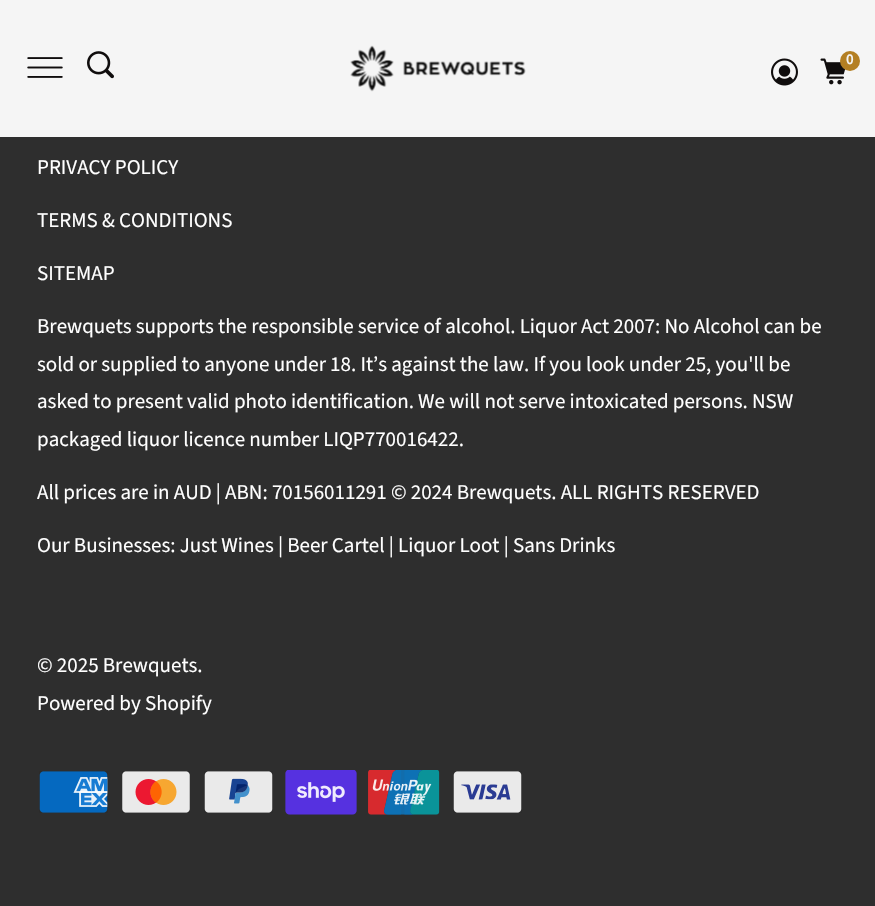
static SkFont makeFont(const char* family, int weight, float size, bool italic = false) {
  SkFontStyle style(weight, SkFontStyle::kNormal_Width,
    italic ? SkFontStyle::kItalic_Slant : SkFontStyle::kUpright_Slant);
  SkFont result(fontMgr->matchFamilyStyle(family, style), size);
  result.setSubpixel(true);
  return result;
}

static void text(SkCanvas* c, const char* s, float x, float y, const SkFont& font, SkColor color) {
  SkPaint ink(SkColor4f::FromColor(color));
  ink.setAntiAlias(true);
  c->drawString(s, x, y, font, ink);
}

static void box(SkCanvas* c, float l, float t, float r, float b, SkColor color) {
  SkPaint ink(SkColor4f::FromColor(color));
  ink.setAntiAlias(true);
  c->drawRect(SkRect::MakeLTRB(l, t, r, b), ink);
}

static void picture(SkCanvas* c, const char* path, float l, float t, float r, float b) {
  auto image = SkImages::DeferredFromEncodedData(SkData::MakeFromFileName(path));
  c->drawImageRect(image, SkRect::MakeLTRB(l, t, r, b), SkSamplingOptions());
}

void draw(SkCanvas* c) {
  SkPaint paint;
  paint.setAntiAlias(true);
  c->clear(0xff2e2e2e);
  box(c, 0, 0, 875, 137, 0xfff5f5f5);
  picture(c, "img_01.png", 27, 57, 63, 78);
  picture(c, "img_02.png", 87, 51, 114, 79);
  picture(c, "img_03.png", 350, 45, 526, 92);
  picture(c, "img_04.png", 771, 58, 798, 86);
  picture(c, "img_05.png", 820, 58, 846, 85);
  paint.setColor(0xffb47f23);
  c->drawCircle(850, 61, 10, paint);
  SkFont face1 = makeFont("Source Sans Pro", 600, 15);
  text(c, "0", 846, 64, face1, 0xfff5f5f5);
  SkFont face2 = makeFont("Source Sans Pro", 400, 21);
  text(c, "PRIVACY POLICY", 37, 174, face2, 0xffffffff);
  text(c, "TERMS & CONDITIONS", 37, 227, face2, 0xffffffff);
  text(c, "SITEMAP", 37, 280, face2, 0xffffffff);
  text(c, "Brewquets supports the responsible service of alcohol. Liquor Act 2007: No Alcohol can be", 37, 333, face2, 0xffffffff);
  text(c, "sold or supplied to anyone under 18. It’s against the law. If you look under 25, you'll be", 37, 371, face2, 0xffffffff);
  text(c, "asked to present valid photo identification. We will not serve intoxicated persons. NSW", 37, 408, face2, 0xffffffff);
  text(c, "packaged liquor licence number LIQP770016422.", 37, 446, face2, 0xffffffff);
  text(c, "All prices are in AUD | ABN: 70156011291 © 2024 Brewquets. ALL RIGHTS RESERVED", 37, 499, face2, 0xffffffff);
  text(c, "Our Businesses: Just Wines | Beer Cartel | Liquor Loot | Sans Drinks", 37, 552, face2, 0xffffffff);
  text(c, "© 2025 Brewquets.", 37, 672, face2, 0xffffffff);
  text(c, "Powered by Shopify", 37, 710, face2, 0xffffffff);
  picture(c, "img_06.png", 39, 771, 108, 813);
  picture(c, "img_07.png", 122, 771, 190, 813);
  picture(c, "img_08.png", 204, 771, 273, 813);
  picture(c, "img_09.png", 285, 770, 357, 815);
  picture(c, "img_10.png", 368, 770, 440, 815);
  picture(c, "img_11.png", 453, 771, 522, 813);
}
